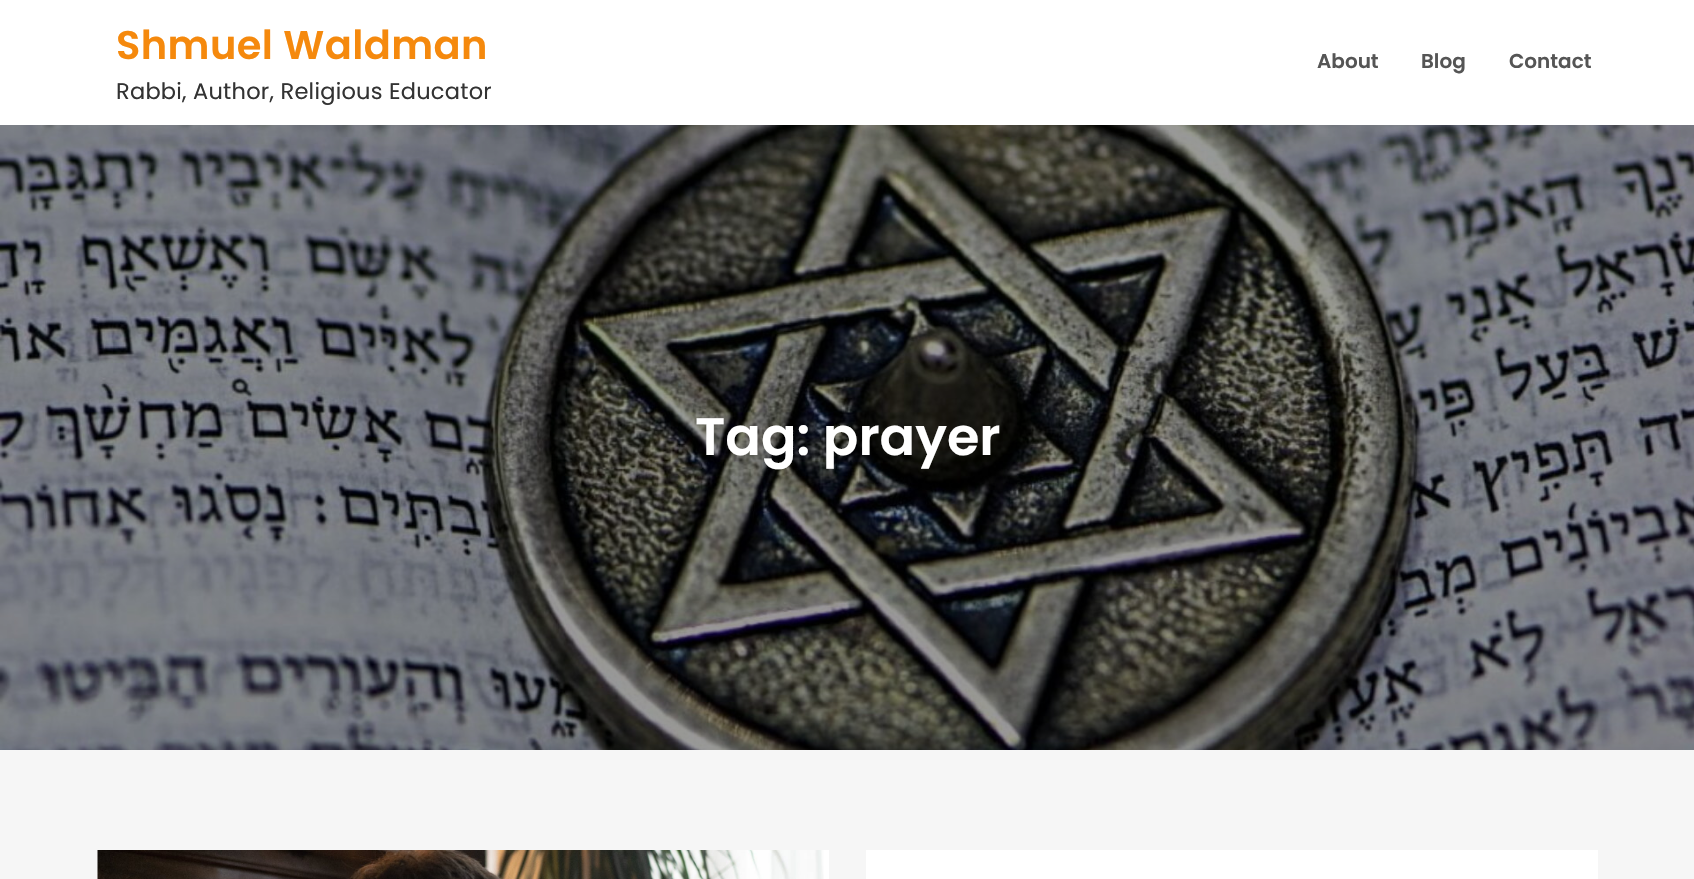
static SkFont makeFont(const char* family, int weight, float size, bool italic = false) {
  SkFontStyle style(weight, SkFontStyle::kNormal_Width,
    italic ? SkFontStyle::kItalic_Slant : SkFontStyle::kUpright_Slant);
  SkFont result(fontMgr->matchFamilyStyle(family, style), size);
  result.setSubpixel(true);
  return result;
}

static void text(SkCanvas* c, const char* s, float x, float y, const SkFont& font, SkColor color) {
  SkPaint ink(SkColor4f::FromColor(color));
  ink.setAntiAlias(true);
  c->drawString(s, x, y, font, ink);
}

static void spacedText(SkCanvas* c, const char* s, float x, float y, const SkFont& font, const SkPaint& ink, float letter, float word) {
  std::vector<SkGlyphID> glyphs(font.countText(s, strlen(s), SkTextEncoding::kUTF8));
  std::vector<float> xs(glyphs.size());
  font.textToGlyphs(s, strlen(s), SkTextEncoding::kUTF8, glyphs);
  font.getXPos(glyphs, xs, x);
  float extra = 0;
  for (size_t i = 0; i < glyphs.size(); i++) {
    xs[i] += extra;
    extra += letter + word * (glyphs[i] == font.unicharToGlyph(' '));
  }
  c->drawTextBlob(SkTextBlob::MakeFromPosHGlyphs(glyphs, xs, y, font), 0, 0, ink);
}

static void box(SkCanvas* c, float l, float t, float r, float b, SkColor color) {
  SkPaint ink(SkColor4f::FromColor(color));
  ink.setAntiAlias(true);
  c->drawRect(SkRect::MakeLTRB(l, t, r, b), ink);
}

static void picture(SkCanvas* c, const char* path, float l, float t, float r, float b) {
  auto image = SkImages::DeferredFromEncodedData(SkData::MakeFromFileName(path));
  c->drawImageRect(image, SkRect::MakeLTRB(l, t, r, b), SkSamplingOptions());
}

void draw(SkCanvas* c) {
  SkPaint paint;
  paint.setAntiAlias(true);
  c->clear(0xfff6f6f6);
  box(c, 0, 0, 1694, 125, 0xffffffff);
  SkFont face1 = makeFont("Poppins", 600, 40);
  paint.setColor(0xfff5890d);
  spacedText(c, "Shmuel Waldman", 116, 59, face1, paint, 0.4f, 0);
  SkFont face2 = makeFont("Poppins", 400, 22.5f);
  paint.setColor(0xff333333);
  spacedText(c, "Rabbi, Author, Religious Educator", 116, 99, face2, paint, 0.25f, 0);
  SkFont face3 = makeFont("Poppins", 600, 20);
  text(c, "About", 1317, 68, face3, 0xff555555);
  text(c, "Blog", 1421, 68, face3, 0xff555555);
  text(c, "Contact", 1509, 68, face3, 0xff555555);
  picture(c, "img_01.png", 0, 125, 1694, 750);
  SkFont face4 = makeFont("Poppins", 600, 52.5f);
  text(c, "Tag: prayer", 695, 455, face4, 0xffffffff);
  box(c, 824, 850, 829, 879, 0xffffffff);
  picture(c, "img_02.png", 97, 850, 824, 879);
  box(c, 866, 850, 1598, 879, 0xffffffff);
}
